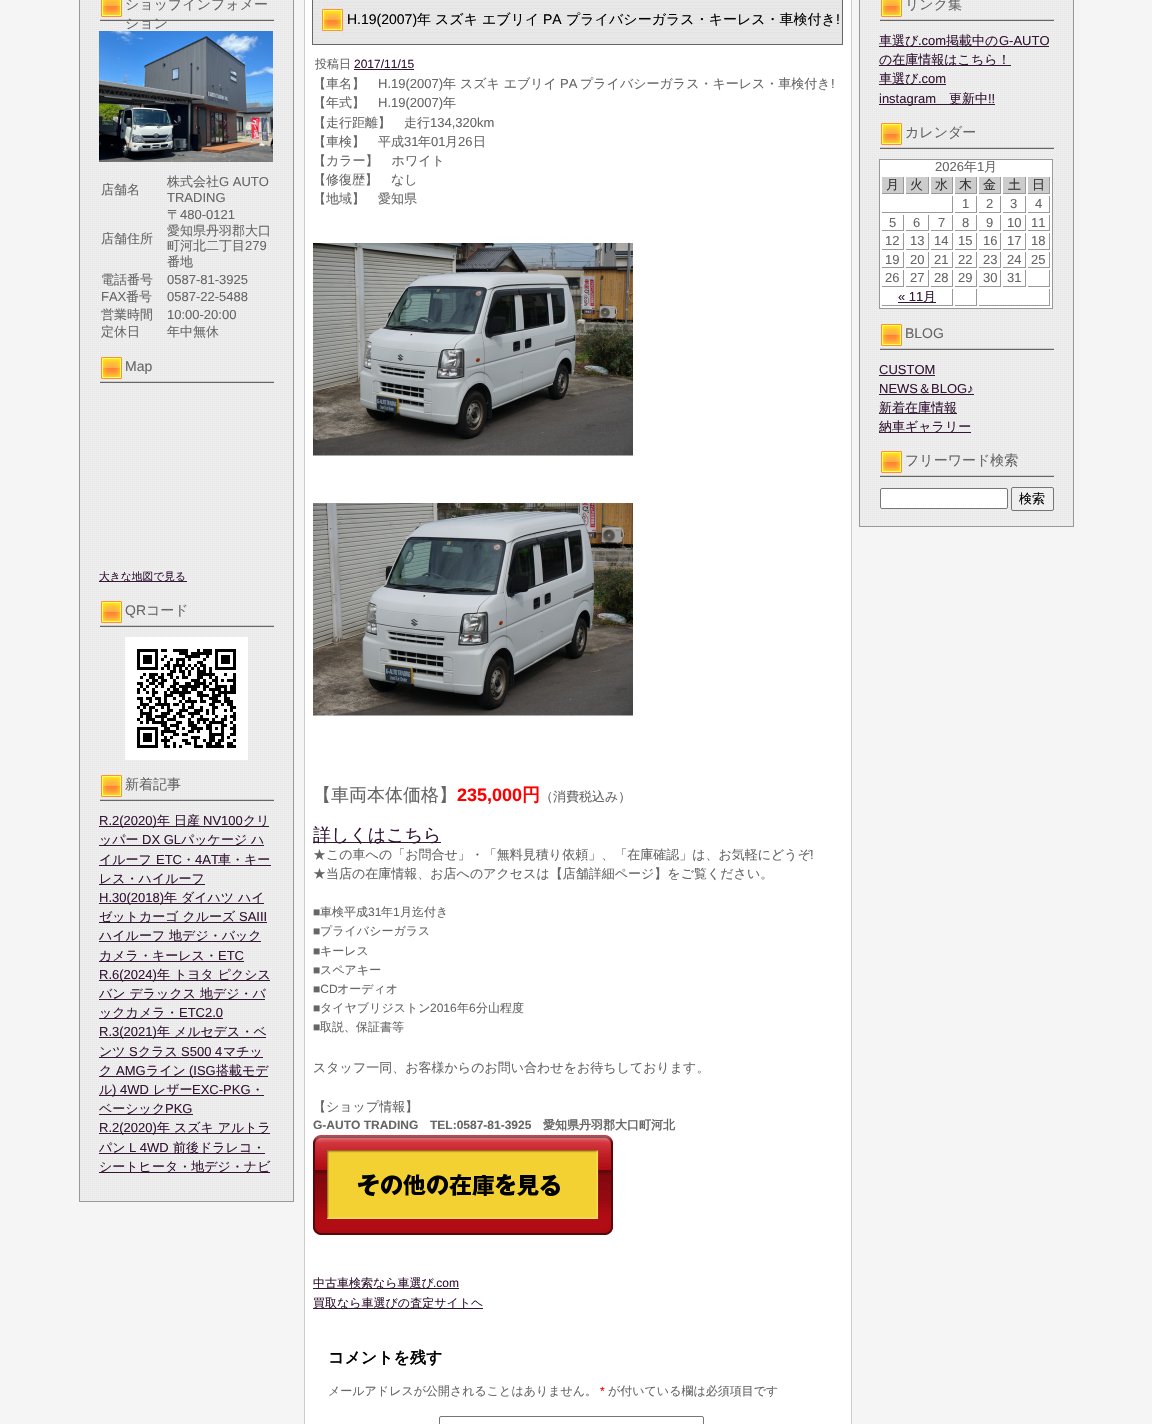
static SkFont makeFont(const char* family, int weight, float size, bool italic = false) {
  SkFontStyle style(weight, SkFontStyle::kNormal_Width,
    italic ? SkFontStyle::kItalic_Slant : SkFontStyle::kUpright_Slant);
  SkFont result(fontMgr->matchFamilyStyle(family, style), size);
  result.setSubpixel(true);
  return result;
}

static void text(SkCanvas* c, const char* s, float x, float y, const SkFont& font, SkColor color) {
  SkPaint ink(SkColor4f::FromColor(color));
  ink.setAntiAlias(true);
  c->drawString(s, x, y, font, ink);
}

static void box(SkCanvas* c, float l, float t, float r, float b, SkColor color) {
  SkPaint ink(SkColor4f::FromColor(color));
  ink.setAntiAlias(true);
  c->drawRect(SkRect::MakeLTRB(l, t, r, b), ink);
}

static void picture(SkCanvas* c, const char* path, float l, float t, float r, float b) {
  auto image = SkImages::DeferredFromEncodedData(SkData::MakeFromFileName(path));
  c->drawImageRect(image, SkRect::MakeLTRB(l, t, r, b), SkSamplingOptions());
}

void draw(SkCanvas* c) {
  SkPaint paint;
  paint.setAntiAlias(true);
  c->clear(0xfff5f5f5);
  picture(c, "img_01.png", 80, 0, 293, 1201);
  paint.setStyle(SkPaint::kStroke_Style);
  paint.setStrokeWidth(1);
  paint.setColor(0xff999999);
  c->drawRect(SkRect::MakeLTRB(79.5f, -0.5f, 293.5f, 1201.5f), paint);
  picture(c, "img_02.png", 100, 0, 274, 21);
  SkFont face1 = makeFont("WenQuanYi Zen Hei", 500, 14);
  text(c, "ショップインフォメー", 125, 9, face1, 0xff666666);
  text(c, "ション", 125, 28, face1, 0xff666666);
  picture(c, "img_03.png", 99, 31, 273, 162);
  SkFont face2 = makeFont("WenQuanYi Zen Hei", 500, 13);
  text(c, "店舗名", 101, 194, face2, 0xff666666);
  text(c, "株式会社", 167, 186, face2, 0xff666666);
  SkFont face3 = makeFont("Liberation Sans", 400, 13);
  text(c, "G AUTO", 219, 186, face3, 0xff666666);
  text(c, "TRADING", 167, 202, face3, 0xff666666);
  text(c, "店舗住所", 101, 243, face2, 0xff666666);
  text(c, "〒", 167, 219, face2, 0xff666666);
  text(c, "480-0121", 180, 219, face3, 0xff666666);
  text(c, "愛知県丹羽郡大口", 167, 235, face2, 0xff666666);
  text(c, "町河北二丁目", 167, 250, face2, 0xff666666);
  text(c, "279", 245, 250, face3, 0xff666666);
  text(c, "番地", 167, 266, face2, 0xff666666);
  text(c, "電話番号", 101, 284, face2, 0xff666666);
  text(c, "0587-81-3925", 167, 284, face3, 0xff666666);
  text(c, "FAX", 101, 301, face3, 0xff666666);
  text(c, "番号", 126, 301, face2, 0xff666666);
  text(c, "0587-22-5488", 167, 301, face3, 0xff666666);
  text(c, "営業時間", 101, 319, face2, 0xff666666);
  text(c, "10:00-20:00", 167, 319, face3, 0xff666666);
  text(c, "定休日", 101, 336, face2, 0xff666666);
  text(c, "年中無休", 167, 336, face2, 0xff666666);
  picture(c, "img_04.png", 100, 357, 274, 383);
  SkFont face4 = makeFont("Liberation Sans", 400, 14);
  text(c, "Map", 125, 371, face4, 0xff666666);
  box(c, 99, 581, 187, 582, 0xff341735);
  SkFont face5 = makeFont("WenQuanYi Zen Hei", 500, 10.75f);
  text(c, "大きな地図で見る", 99, 580, face5, 0xff341735);
  picture(c, "img_04.png", 100, 601, 274, 627);
  text(c, "QR", 125, 615, face4, 0xff666666);
  text(c, "コード", 146, 615, face1, 0xff666666);
  picture(c, "img_05.png", 125, 637, 248, 760);
  picture(c, "img_04.png", 100, 775, 274, 801);
  text(c, "新着記事", 125, 789, face1, 0xff666666);
  box(c, 99, 826, 269, 827, 0xff341735);
  text(c, "R.2(2020)", 99, 825, face3, 0xff341735);
  text(c, "年 日産", 157, 825, face2, 0xff341735);
  text(c, "NV100", 203, 825, face3, 0xff341735);
  text(c, "クリ", 243, 825, face2, 0xff341735);
  box(c, 99, 845, 264, 846, 0xff341735);
  text(c, "ッパー", 99, 844, face2, 0xff341735);
  text(c, "DX GL", 142, 844, face3, 0xff341735);
  text(c, "パッケージ ハ", 181, 844, face2, 0xff341735);
  box(c, 99, 865, 271, 866, 0xff341735);
  text(c, "イルーフ", 99, 864, face2, 0xff341735);
  text(c, "ETC", 156, 864, face3, 0xff341735);
  text(c, "・", 182, 864, face2, 0xff341735);
  text(c, "4AT", 195, 864, face3, 0xff341735);
  text(c, "車・キー", 218, 864, face2, 0xff341735);
  box(c, 99, 884, 205, 885, 0xff341735);
  text(c, "レス・ハイルーフ", 99, 883, face2, 0xff341735);
  box(c, 99, 903, 264, 904, 0xff341735);
  text(c, "H.30(2018)", 99, 902, face3, 0xff341735);
  text(c, "年 ダイハツ ハイ", 164, 902, face2, 0xff341735);
  box(c, 99, 922, 267, 923, 0xff341735);
  text(c, "ゼットカーゴ クルーズ", 99, 921, face2, 0xff341735);
  text(c, "SAIII", 239, 921, face3, 0xff341735);
  box(c, 99, 941, 261, 942, 0xff341735);
  text(c, "ハイルーフ 地デジ・バック", 99, 940, face2, 0xff341735);
  box(c, 99, 961, 244, 962, 0xff341735);
  text(c, "カメラ・キーレス・", 99, 960, face2, 0xff341735);
  text(c, "ETC", 218, 960, face3, 0xff341735);
  box(c, 99, 980, 270, 981, 0xff341735);
  text(c, "R.6(2024)", 99, 979, face3, 0xff341735);
  text(c, "年 トヨタ ピクシス", 157, 979, face2, 0xff341735);
  box(c, 99, 999, 265, 1000, 0xff341735);
  text(c, "バン デラックス 地デジ・バ", 99, 998, face2, 0xff341735);
  box(c, 99, 1018, 223, 1019, 0xff341735);
  text(c, "ックカメラ・", 99, 1017, face2, 0xff341735);
  text(c, "ETC2.0", 179, 1017, face3, 0xff341735);
  box(c, 99, 1037, 266, 1038, 0xff341735);
  text(c, "R.3(2021)", 99, 1036, face3, 0xff341735);
  text(c, "年 メルセデス・ベ", 157, 1036, face2, 0xff341735);
  box(c, 99, 1057, 263, 1058, 0xff341735);
  text(c, "ンツ", 99, 1056, face2, 0xff341735);
  text(c, "S", 129, 1056, face3, 0xff341735);
  text(c, "クラス", 138, 1056, face2, 0xff341735);
  text(c, "S500 4", 181, 1056, face3, 0xff341735);
  text(c, "マチッ", 223, 1056, face2, 0xff341735);
  box(c, 99, 1076, 268, 1077, 0xff341735);
  text(c, "ク", 99, 1075, face2, 0xff341735);
  text(c, "AMG", 116, 1075, face3, 0xff341735);
  text(c, "ライン", 146, 1075, face2, 0xff341735);
  text(c, "(ISG", 189, 1075, face3, 0xff341735);
  text(c, "搭載モデ", 216, 1075, face2, 0xff341735);
  text(c, "ル", 99, 1094, face2, 0xff341735);
  box(c, 99, 1095, 264, 1096, 0xff341735);
  text(c, ") 4WD", 112, 1094, face3, 0xff341735);
  text(c, "レザー", 153, 1094, face2, 0xff341735);
  text(c, "EXC-PKG", 192, 1094, face3, 0xff341735);
  text(c, "・", 251, 1094, face2, 0xff341735);
  box(c, 99, 1114, 193, 1115, 0xff341735);
  text(c, "ベーシック", 99, 1113, face2, 0xff341735);
  text(c, "PKG", 165, 1113, face3, 0xff341735);
  box(c, 99, 1133, 270, 1134, 0xff341735);
  text(c, "R.2(2020)", 99, 1132, face3, 0xff341735);
  text(c, "年 スズキ アルトラ", 157, 1132, face2, 0xff341735);
  text(c, "パン", 99, 1152, face2, 0xff341735);
  box(c, 99, 1153, 265, 1154, 0xff341735);
  text(c, "L 4WD", 129, 1152, face3, 0xff341735);
  text(c, "前後ドラレコ・", 173, 1152, face2, 0xff341735);
  box(c, 99, 1172, 270, 1173, 0xff341735);
  text(c, "シートヒータ・地デジ・ナビ", 99, 1171, face2, 0xff341735);
  paint.setStyle(SkPaint::kFill_Style);
  paint.setColor(0xffffffff);
  c->drawRect(SkRect::MakeLTRB(304.5f, -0.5f, 851.5f, 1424.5f), paint);
  paint.setStyle(SkPaint::kStroke_Style);
  paint.setColor(0xffcccccc);
  c->drawRect(SkRect::MakeLTRB(304.5f, -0.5f, 851.5f, 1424.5f), paint);
  picture(c, "img_06.png", 312, 0, 843, 45);
  text(c, "H.19(2007)", 347, 24, face4, 0xff000000);
  text(c, "年", 417, 24, face1, 0xff000000);
  text(c, "スズキ", 435, 24, face1, 0xff000000);
  text(c, "エブリイ", 482, 24, face1, 0xff000000);
  text(c, "PA", 543, 24, face4, 0xff000000);
  text(c, "プライバシーガラス・キーレス・車検付き", 566, 24, face1, 0xff000000);
  text(c, "!", 836, 24, face4, 0xff000000);
  SkFont face6 = makeFont("WenQuanYi Zen Hei", 500, 12);
  text(c, "投稿日", 315, 68, face6, 0xff666666);
  SkFont face7 = makeFont("Liberation Sans", 400, 12);
  text(c, "2017/11/15", 354, 68, face7, 0xff341735);
  box(c, 354, 69, 414, 70, 0xff341735);
  text(c, "【車名】", 313, 88, face2, 0xff666666);
  text(c, "H.19(2007)", 378, 88, face3, 0xff666666);
  text(c, "年 スズキ エブリイ", 443, 88, face2, 0xff666666);
  text(c, "PA", 560, 88, face3, 0xff666666);
  text(c, "プライバシーガラス・キーレス・車検付き", 580, 88, face2, 0xff666666);
  text(c, "!", 831, 88, face3, 0xff666666);
  text(c, "【年式】", 313, 107, face2, 0xff666666);
  text(c, "H.19(2007)", 378, 107, face3, 0xff666666);
  text(c, "年", 443, 107, face2, 0xff666666);
  text(c, "【走行距離】　走行", 313, 127, face2, 0xff666666);
  text(c, "134,320km", 430, 127, face3, 0xff666666);
  text(c, "【車検】　平成", 313, 146, face2, 0xff666666);
  text(c, "31", 404, 146, face3, 0xff666666);
  text(c, "年", 418, 146, face2, 0xff666666);
  text(c, "01", 431, 146, face3, 0xff666666);
  text(c, "月", 445, 146, face2, 0xff666666);
  text(c, "26", 458, 146, face3, 0xff666666);
  text(c, "日", 473, 146, face2, 0xff666666);
  text(c, "【カラー】　ホワイト", 313, 165, face2, 0xff666666);
  text(c, "【修復歴】　なし", 313, 184, face2, 0xff666666);
  text(c, "【地域】　愛知県", 313, 203, face2, 0xff666666);
  picture(c, "img_07.png", 313, 238, 633, 456);
  picture(c, "img_08.png", 313, 497, 633, 716);
  SkFont face8 = makeFont("WenQuanYi Zen Hei", 500, 18);
  text(c, "【車両本体価格】", 313, 801, face8, 0xff666666);
  SkFont face9 = makeFont("Liberation Sans", 700, 18);
  text(c, "235,000", 457, 801, face9, 0xffff0000);
  SkFont face10 = makeFont("WenQuanYi Zen Hei", 700, 18);
  text(c, "円", 522, 801, face10, 0xffff0000);
  text(c, "（消費税込み）", 540, 801, face2, 0xff666666);
  box(c, 313, 842, 441, 843, 0xff341735);
  text(c, "詳しくはこちら", 313, 841, face8, 0xff341735);
  text(c, "★この車への「お問合せ」・「無料見積り依頼」、「在庫確認」は、お気軽にどうぞ", 313, 859, face2, 0xff666666);
  text(c, "!", 810, 859, face3, 0xff666666);
  text(c, "★当店の在庫情報、お店へのアクセスは【店舗詳細ページ】をご覧ください。", 313, 878, face2, 0xff666666);
  text(c, "■", 313, 916, face7, 0xff666666);
  text(c, "車検平成", 320, 916, face6, 0xff666666);
  text(c, "31", 368, 916, face7, 0xff666666);
  text(c, "年", 381, 916, face6, 0xff666666);
  text(c, "1", 393, 916, face7, 0xff666666);
  text(c, "月迄付き", 400, 916, face6, 0xff666666);
  text(c, "■", 313, 935, face7, 0xff666666);
  text(c, "プライバシーガラス", 320, 935, face6, 0xff666666);
  text(c, "■", 313, 955, face7, 0xff666666);
  text(c, "キーレス", 320, 955, face6, 0xff666666);
  text(c, "■", 313, 974, face7, 0xff666666);
  text(c, "スペアキー", 320, 974, face6, 0xff666666);
  text(c, "■CD", 313, 993, face7, 0xff666666);
  text(c, "オーディオ", 337, 993, face6, 0xff666666);
  text(c, "■", 313, 1012, face7, 0xff666666);
  text(c, "タイヤブリジストン", 320, 1012, face6, 0xff666666);
  text(c, "2016", 430, 1012, face7, 0xff666666);
  text(c, "年", 457, 1012, face6, 0xff666666);
  text(c, "6", 469, 1012, face7, 0xff666666);
  text(c, "分山程度", 476, 1012, face6, 0xff666666);
  text(c, "■", 313, 1031, face7, 0xff666666);
  text(c, "取説、保証書等", 320, 1031, face6, 0xff666666);
  text(c, "スタッフ一同、お客様からのお問い合わせをお待ちしております。", 313, 1072, face2, 0xff666666);
  text(c, "【ショップ情報】", 313, 1111, face2, 0xff666666);
  SkFont face11 = makeFont("Liberation Sans", 700, 12);
  text(c, "G-AUTO TRADING", 313, 1129, face11, 0xff666666);
  text(c, "TEL:0587-81-3925", 430, 1129, face11, 0xff666666);
  SkFont face12 = makeFont("WenQuanYi Zen Hei", 700, 12);
  text(c, "愛知県丹羽郡大口町河北", 543, 1129, face12, 0xff666666);
  picture(c, "img_09.png", 313, 1135, 613, 1235);
  box(c, 313, 1288, 459, 1289, 0xff341735);
  text(c, "中古車検索なら車選び", 313, 1287, face6, 0xff341735);
  text(c, ".com", 433, 1287, face7, 0xff341735);
  box(c, 313, 1308, 483, 1309, 0xff341735);
  text(c, "買取なら車選びの査定サイトヘ", 313, 1307, face6, 0xff341735);
  SkFont face13 = makeFont("WenQuanYi Zen Hei", 700, 16);
  text(c, "コメントを残す", 328, 1363, face13, 0xff000000);
  text(c, "メールアドレスが公開されることはありません。", 328, 1395, face6, 0xff666666);
  text(c, "*", 600, 1395, face7, 0xffff0000);
  text(c, "が付いている欄は必須項目です", 608, 1395, face6, 0xff666666);
  paint.setColor(0xff767676);
  c->drawRoundRect(SkRect::MakeLTRB(439.5f, 1416.5f, 703.5f, 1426.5f), 1.5f, 1.5f, paint);
  picture(c, "img_10.png", 860, 0, 1073, 526);
  paint.setColor(0xff999999);
  c->drawRect(SkRect::MakeLTRB(859.5f, -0.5f, 1073.5f, 526.5f), paint);
  picture(c, "img_02.png", 880, 0, 1054, 21);
  text(c, "リンク集", 905, 9, face1, 0xff666666);
  box(c, 879, 46, 1049, 47, 0xff341735);
  text(c, "車選び", 879, 45, face2, 0xff341735);
  text(c, ".com", 918, 45, face3, 0xff341735);
  text(c, "掲載中の", 946, 45, face2, 0xff341735);
  text(c, "G-AUTO", 999, 45, face3, 0xff341735);
  box(c, 879, 65, 1011, 66, 0xff341735);
  text(c, "の在庫情報はこちら！", 879, 64, face2, 0xff341735);
  box(c, 879, 84, 946, 85, 0xff341735);
  text(c, "車選び", 879, 83, face2, 0xff341735);
  text(c, ".com", 918, 83, face3, 0xff341735);
  box(c, 879, 104, 995, 105, 0xff341735);
  text(c, "instagram", 879, 103, face3, 0xff341735);
  text(c, "更新中", 949, 103, face2, 0xff341735);
  text(c, "!!", 988, 103, face3, 0xff341735);
  picture(c, "img_04.png", 880, 123, 1054, 149);
  text(c, "カレンダー", 905, 137, face1, 0xff666666);
  paint.setStyle(SkPaint::kFill_Style);
  paint.setColor(0xffffffff);
  c->drawRect(SkRect::MakeLTRB(879.5f, 159.5f, 1052.5f, 308.5f), paint);
  paint.setStyle(SkPaint::kStroke_Style);
  paint.setColor(0xff999999);
  c->drawRect(SkRect::MakeLTRB(879.5f, 159.5f, 1052.5f, 308.5f), paint);
  text(c, "2026", 935, 171, face3, 0xff666666);
  text(c, "年", 964, 171, face2, 0xff666666);
  text(c, "1", 977, 171, face3, 0xff666666);
  text(c, "月", 984, 171, face2, 0xff666666);
  box(c, 882, 177, 903, 193, 0xffcccccc);
  box(c, 903, 177, 904, 194, 0xff999999);
  box(c, 882, 193, 904, 194, 0xff999999);
  text(c, "月", 886, 189, face2, 0xff333333);
  box(c, 906, 177, 928, 193, 0xffcccccc);
  box(c, 928, 177, 929, 194, 0xff999999);
  box(c, 906, 193, 929, 194, 0xff999999);
  text(c, "火", 910, 189, face2, 0xff333333);
  box(c, 931, 177, 952, 193, 0xffcccccc);
  box(c, 952, 177, 953, 194, 0xff999999);
  box(c, 931, 193, 953, 194, 0xff999999);
  text(c, "水", 935, 189, face2, 0xff333333);
  box(c, 955, 177, 976, 193, 0xffcccccc);
  box(c, 976, 177, 977, 194, 0xff999999);
  box(c, 955, 193, 977, 194, 0xff999999);
  text(c, "木", 959, 189, face2, 0xff333333);
  box(c, 979, 177, 1000, 193, 0xffcccccc);
  box(c, 1000, 177, 1001, 194, 0xff999999);
  box(c, 979, 193, 1001, 194, 0xff999999);
  text(c, "金", 983, 189, face2, 0xff333333);
  box(c, 1003, 177, 1025, 193, 0xffcccccc);
  box(c, 1025, 177, 1026, 194, 0xff999999);
  box(c, 1003, 193, 1026, 194, 0xff999999);
  text(c, "土", 1008, 189, face2, 0xff333333);
  box(c, 1028, 177, 1049, 193, 0xffcccccc);
  box(c, 1049, 177, 1050, 194, 0xff999999);
  box(c, 1028, 193, 1050, 194, 0xff999999);
  text(c, "日", 1032, 189, face2, 0xff333333);
  box(c, 952, 196, 953, 213, 0xff999999);
  box(c, 882, 212, 953, 213, 0xff999999);
  box(c, 976, 196, 977, 213, 0xff999999);
  box(c, 955, 212, 977, 213, 0xff999999);
  text(c, "1", 962, 208, face3, 0xff666666);
  box(c, 1000, 196, 1001, 213, 0xff999999);
  box(c, 979, 212, 1001, 213, 0xff999999);
  text(c, "2", 986, 208, face3, 0xff666666);
  box(c, 1025, 196, 1026, 213, 0xff999999);
  box(c, 1003, 212, 1026, 213, 0xff999999);
  text(c, "3", 1010, 208, face3, 0xff666666);
  box(c, 1049, 196, 1050, 213, 0xff999999);
  box(c, 1028, 212, 1050, 213, 0xff999999);
  text(c, "4", 1035, 208, face3, 0xff666666);
  box(c, 903, 215, 904, 231, 0xff999999);
  box(c, 882, 230, 904, 231, 0xff999999);
  text(c, "5", 889, 227, face3, 0xff666666);
  box(c, 928, 215, 929, 231, 0xff999999);
  box(c, 906, 230, 929, 231, 0xff999999);
  text(c, "6", 913, 227, face3, 0xff666666);
  box(c, 952, 215, 953, 231, 0xff999999);
  box(c, 931, 230, 953, 231, 0xff999999);
  text(c, "7", 938, 227, face3, 0xff666666);
  box(c, 976, 215, 977, 231, 0xff999999);
  box(c, 955, 230, 977, 231, 0xff999999);
  text(c, "8", 962, 227, face3, 0xff666666);
  box(c, 1000, 215, 1001, 231, 0xff999999);
  box(c, 979, 230, 1001, 231, 0xff999999);
  text(c, "9", 986, 227, face3, 0xff666666);
  box(c, 1025, 215, 1026, 231, 0xff999999);
  box(c, 1003, 230, 1026, 231, 0xff999999);
  text(c, "10", 1007, 227, face3, 0xff666666);
  box(c, 1049, 215, 1050, 231, 0xff999999);
  box(c, 1028, 230, 1050, 231, 0xff999999);
  text(c, "11", 1031, 227, face3, 0xff666666);
  box(c, 903, 233, 904, 250, 0xff999999);
  box(c, 882, 249, 904, 250, 0xff999999);
  text(c, "12", 885, 245, face3, 0xff666666);
  box(c, 928, 233, 929, 250, 0xff999999);
  box(c, 906, 249, 929, 250, 0xff999999);
  text(c, "13", 910, 245, face3, 0xff666666);
  box(c, 952, 233, 953, 250, 0xff999999);
  box(c, 931, 249, 953, 250, 0xff999999);
  text(c, "14", 934, 245, face3, 0xff666666);
  box(c, 976, 233, 977, 250, 0xff999999);
  box(c, 955, 249, 977, 250, 0xff999999);
  text(c, "15", 958, 245, face3, 0xff666666);
  box(c, 1000, 233, 1001, 250, 0xff999999);
  box(c, 979, 249, 1001, 250, 0xff999999);
  text(c, "16", 983, 245, face3, 0xff666666);
  box(c, 1025, 233, 1026, 250, 0xff999999);
  box(c, 1003, 249, 1026, 250, 0xff999999);
  text(c, "17", 1007, 245, face3, 0xff666666);
  box(c, 1049, 233, 1050, 250, 0xff999999);
  box(c, 1028, 249, 1050, 250, 0xff999999);
  text(c, "18", 1031, 245, face3, 0xff666666);
  box(c, 903, 252, 904, 268, 0xff999999);
  box(c, 882, 267, 904, 268, 0xff999999);
  text(c, "19", 885, 264, face3, 0xff666666);
  box(c, 928, 252, 929, 268, 0xff999999);
  box(c, 906, 267, 929, 268, 0xff999999);
  text(c, "20", 910, 264, face3, 0xff666666);
  box(c, 952, 252, 953, 268, 0xff999999);
  box(c, 931, 267, 953, 268, 0xff999999);
  text(c, "21", 934, 264, face3, 0xff666666);
  box(c, 976, 252, 977, 268, 0xff999999);
  box(c, 955, 267, 977, 268, 0xff999999);
  text(c, "22", 958, 264, face3, 0xff666666);
  box(c, 1000, 252, 1001, 268, 0xff999999);
  box(c, 979, 267, 1001, 268, 0xff999999);
  text(c, "23", 983, 264, face3, 0xff666666);
  box(c, 1025, 252, 1026, 268, 0xff999999);
  box(c, 1003, 267, 1026, 268, 0xff999999);
  text(c, "24", 1007, 264, face3, 0xff666666);
  box(c, 1049, 252, 1050, 268, 0xff999999);
  box(c, 1028, 267, 1050, 268, 0xff999999);
  text(c, "25", 1031, 264, face3, 0xff666666);
  box(c, 903, 270, 904, 287, 0xff999999);
  box(c, 882, 286, 904, 287, 0xff999999);
  text(c, "26", 885, 282, face3, 0xff666666);
  box(c, 928, 270, 929, 287, 0xff999999);
  box(c, 906, 286, 929, 287, 0xff999999);
  text(c, "27", 910, 282, face3, 0xff666666);
  box(c, 952, 270, 953, 287, 0xff999999);
  box(c, 931, 286, 953, 287, 0xff999999);
  text(c, "28", 934, 282, face3, 0xff666666);
  box(c, 976, 270, 977, 287, 0xff999999);
  box(c, 955, 286, 977, 287, 0xff999999);
  text(c, "29", 958, 282, face3, 0xff666666);
  box(c, 1000, 270, 1001, 287, 0xff999999);
  box(c, 979, 286, 1001, 287, 0xff999999);
  text(c, "30", 983, 282, face3, 0xff666666);
  box(c, 1025, 270, 1026, 287, 0xff999999);
  box(c, 1003, 286, 1026, 287, 0xff999999);
  text(c, "31", 1007, 282, face3, 0xff666666);
  box(c, 1049, 270, 1050, 287, 0xff999999);
  box(c, 1028, 286, 1050, 287, 0xff999999);
  box(c, 952, 289, 953, 306, 0xff999999);
  box(c, 882, 305, 953, 306, 0xff999999);
  text(c, "« 11", 898, 301, face3, 0xff341735);
  box(c, 898, 302, 936, 303, 0xff341735);
  text(c, "月", 923, 301, face2, 0xff341735);
  box(c, 976, 289, 977, 306, 0xff999999);
  box(c, 955, 305, 977, 306, 0xff999999);
  box(c, 1049, 289, 1050, 306, 0xff999999);
  box(c, 979, 305, 1050, 306, 0xff999999);
  picture(c, "img_11.png", 880, 324, 1054, 350);
  text(c, "BLOG", 905, 338, face4, 0xff666666);
  text(c, "CUSTOM", 879, 374, face3, 0xff341735);
  box(c, 879, 375, 935, 376, 0xff341735);
  text(c, "NEWS", 879, 393, face3, 0xff341735);
  box(c, 879, 394, 974, 395, 0xff341735);
  text(c, "＆", 918, 393, face2, 0xff341735);
  text(c, "BLOG♪", 931, 393, face3, 0xff341735);
  box(c, 879, 413, 957, 414, 0xff341735);
  text(c, "新着在庫情報", 879, 412, face2, 0xff341735);
  box(c, 879, 432, 971, 433, 0xff341735);
  text(c, "納車ギャラリー", 879, 431, face2, 0xff341735);
  picture(c, "img_04.png", 880, 451, 1054, 477);
  text(c, "フリーワード検索", 905, 465, face1, 0xff666666);
  paint.setStyle(SkPaint::kFill_Style);
  paint.setColor(0xffffffff);
  c->drawRoundRect(SkRect::MakeLTRB(880.5f, 488.5f, 1007.5f, 508.5f), 1.5f, 1.5f, paint);
  paint.setStyle(SkPaint::kStroke_Style);
  paint.setColor(0xff767676);
  c->drawRoundRect(SkRect::MakeLTRB(880.5f, 488.5f, 1007.5f, 508.5f), 1.5f, 1.5f, paint);
  paint.setStyle(SkPaint::kFill_Style);
  paint.setColor(0xffefefef);
  c->drawRoundRect(SkRect::MakeLTRB(1011.5f, 487.5f, 1053.5f, 510.5f), 1.5f, 1.5f, paint);
  paint.setStyle(SkPaint::kStroke_Style);
  paint.setColor(0xff767676);
  c->drawRoundRect(SkRect::MakeLTRB(1011.5f, 487.5f, 1053.5f, 510.5f), 1.5f, 1.5f, paint);
  text(c, "検索", 1019, 503, face2, 0xff000000);
}
